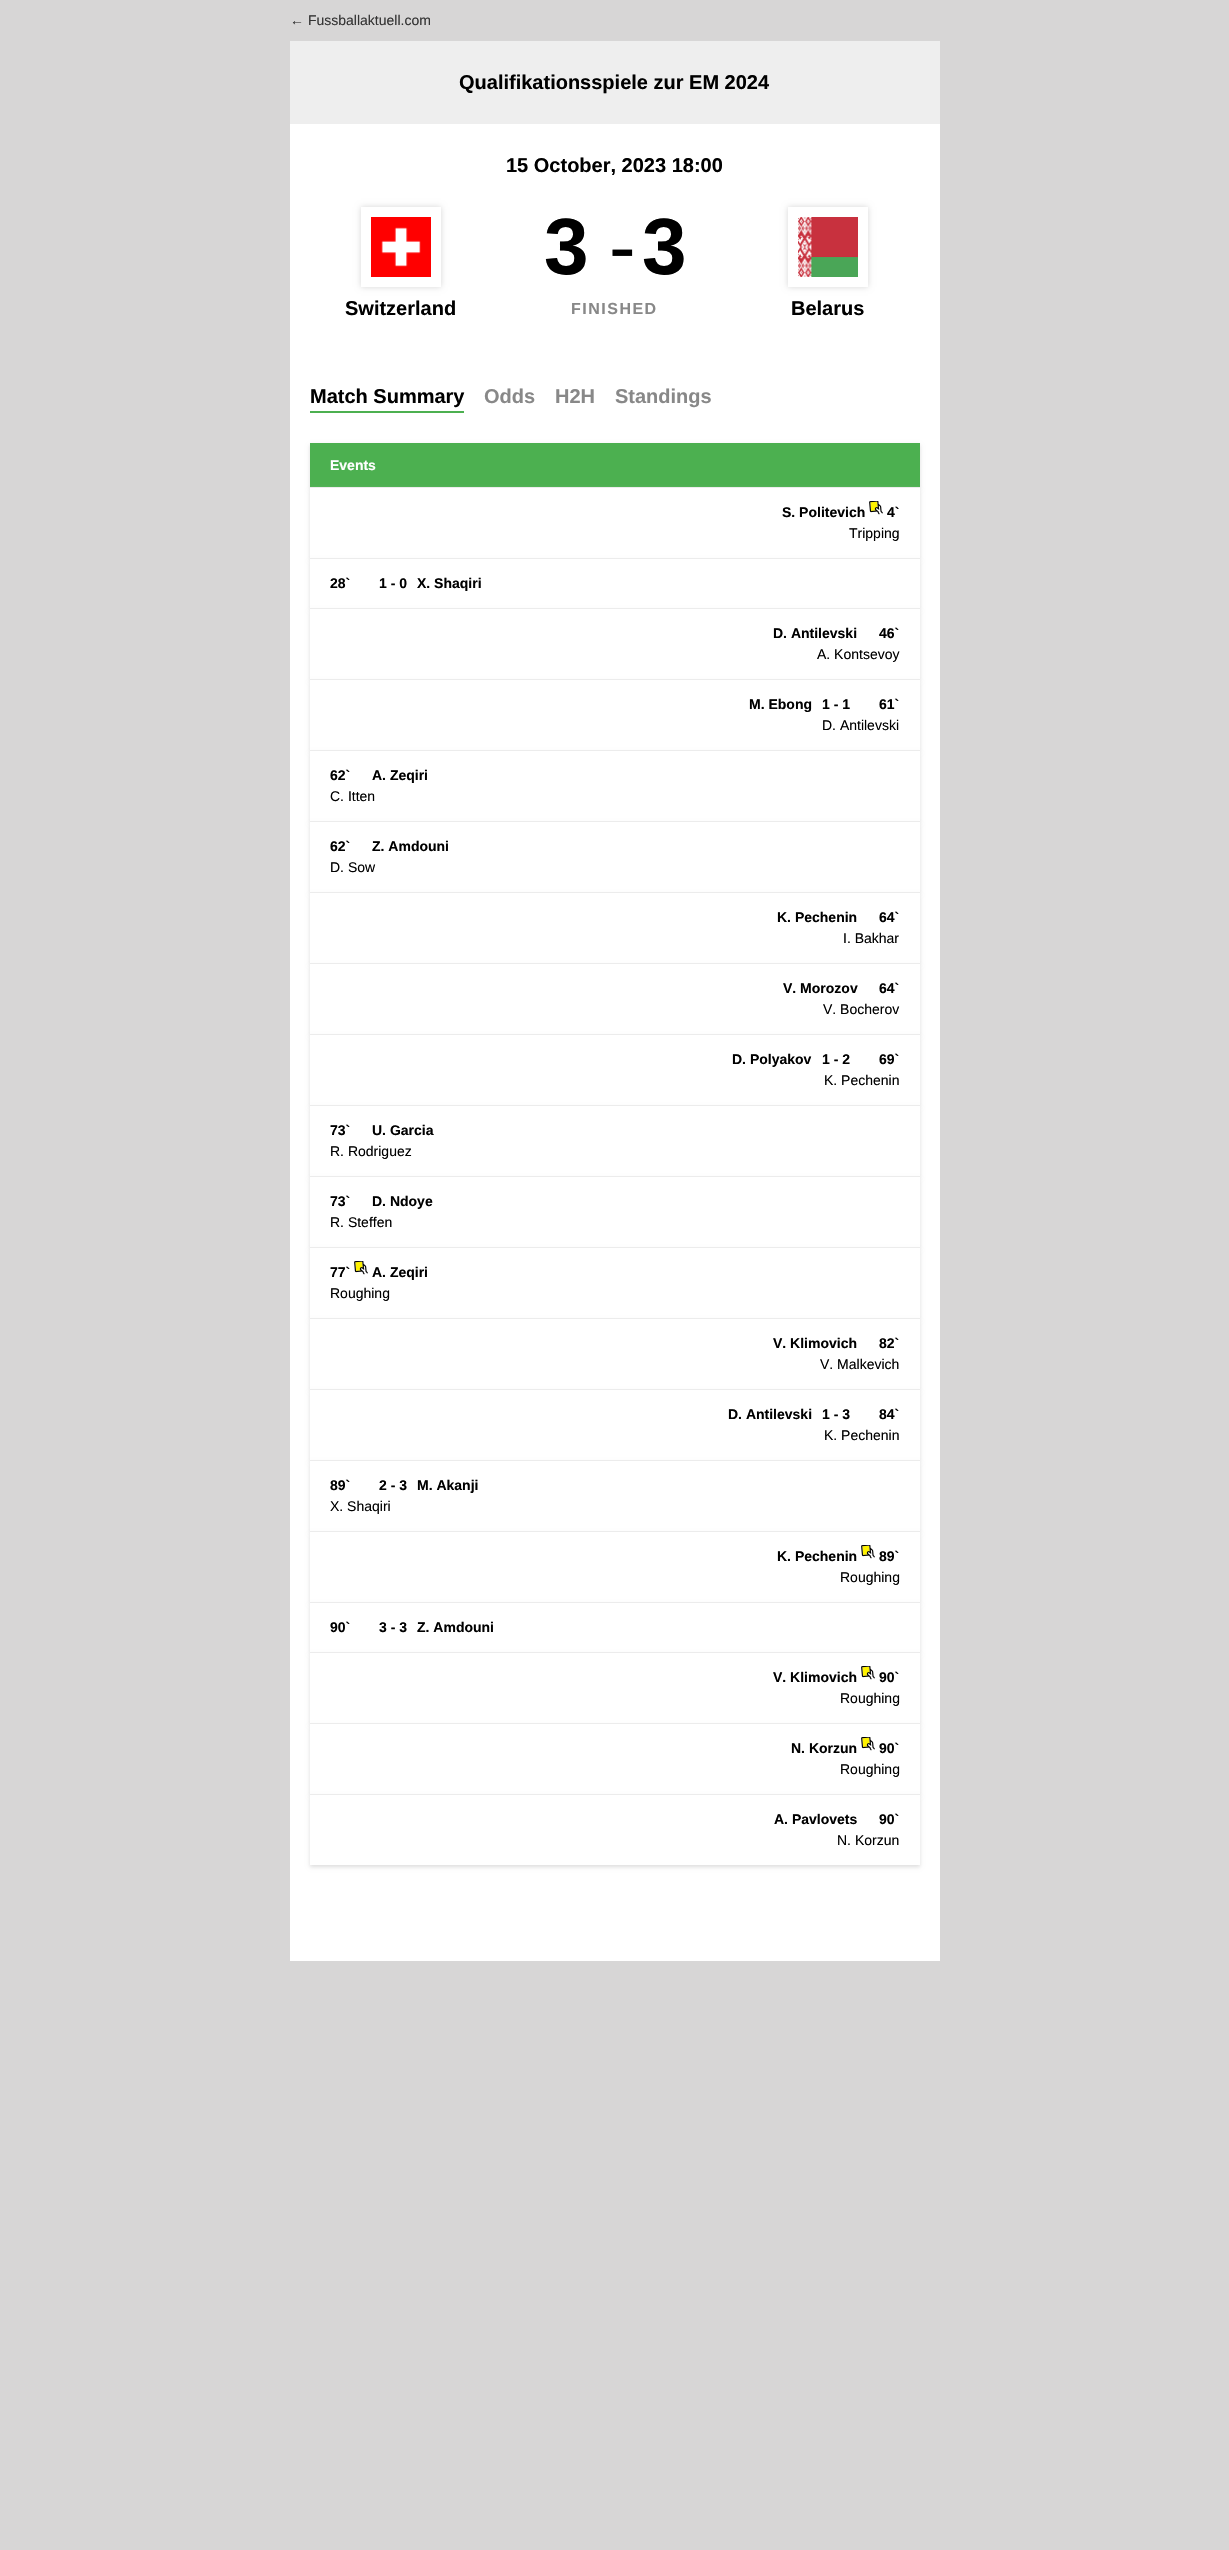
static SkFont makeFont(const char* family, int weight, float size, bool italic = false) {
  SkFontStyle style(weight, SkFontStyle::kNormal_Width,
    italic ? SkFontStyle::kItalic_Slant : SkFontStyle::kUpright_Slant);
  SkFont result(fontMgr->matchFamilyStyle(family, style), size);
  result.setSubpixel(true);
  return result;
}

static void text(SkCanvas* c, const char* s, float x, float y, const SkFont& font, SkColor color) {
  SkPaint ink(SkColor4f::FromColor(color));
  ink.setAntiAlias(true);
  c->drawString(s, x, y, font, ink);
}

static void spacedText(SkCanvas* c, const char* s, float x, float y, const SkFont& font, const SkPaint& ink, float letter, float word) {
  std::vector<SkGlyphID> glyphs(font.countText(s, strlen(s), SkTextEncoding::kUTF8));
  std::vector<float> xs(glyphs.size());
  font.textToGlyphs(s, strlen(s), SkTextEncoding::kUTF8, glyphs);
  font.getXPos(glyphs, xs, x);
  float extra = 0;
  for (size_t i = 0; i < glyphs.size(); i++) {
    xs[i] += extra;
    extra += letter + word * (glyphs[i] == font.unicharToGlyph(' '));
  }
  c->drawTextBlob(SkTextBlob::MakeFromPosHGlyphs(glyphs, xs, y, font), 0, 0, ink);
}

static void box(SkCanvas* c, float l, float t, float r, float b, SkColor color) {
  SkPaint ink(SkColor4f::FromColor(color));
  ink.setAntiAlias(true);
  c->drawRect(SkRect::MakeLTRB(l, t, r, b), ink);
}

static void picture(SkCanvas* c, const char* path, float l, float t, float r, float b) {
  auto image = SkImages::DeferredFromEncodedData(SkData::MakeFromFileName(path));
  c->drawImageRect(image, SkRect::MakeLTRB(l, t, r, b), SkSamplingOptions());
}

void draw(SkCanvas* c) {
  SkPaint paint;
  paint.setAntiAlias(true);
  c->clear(0xffd7d6d6);
  SkFont face1 = makeFont("Liberation Sans", 400, 14);
  text(c, "← Fussballaktuell.com", 290, 25, face1, 0xff333333);
  box(c, 290, 124, 940, 1961, 0xffffffff);
  box(c, 290, 41, 940, 124, 0xffeeeeee);
  SkFont face2 = makeFont("Liberation Sans", 700, 20);
  text(c, "Qualifikationsspiele zur EM 2024", 459, 89, face2, 0xff000000);
  text(c, "15 October, 2023 18:00", 506, 172, face2, 0xff000000);
  c->save();
  c->clipPath(SkPathBuilder(SkPathFillType::kEvenOdd).moveTo(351, 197).lineTo(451, 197).lineTo(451, 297).lineTo(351, 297).close().moveTo(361, 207).lineTo(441, 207).lineTo(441, 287).lineTo(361, 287).close().detach(), true);
  paint.setColor(0x29000000);
  paint.setMaskFilter(SkMaskFilter::MakeBlur(kNormal_SkBlurStyle, 3));
  c->drawRect(SkRect::MakeLTRB(361, 207, 441, 287), paint);
  paint.setMaskFilter(nullptr);
  c->restore();
  picture(c, "img_01.png", 371, 217, 431, 277);
  text(c, "Switzerland", 345, 315, face2, 0xff000000);
  c->save();
  c->clipPath(SkPathBuilder(SkPathFillType::kEvenOdd).moveTo(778, 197).lineTo(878, 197).lineTo(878, 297).lineTo(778, 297).close().moveTo(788, 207).lineTo(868, 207).lineTo(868, 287).lineTo(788, 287).close().detach(), true);
  paint.setMaskFilter(SkMaskFilter::MakeBlur(kNormal_SkBlurStyle, 3));
  c->drawRect(SkRect::MakeLTRB(788, 207, 868, 287), paint);
  paint.setMaskFilter(nullptr);
  c->restore();
  picture(c, "img_02.png", 798, 217, 858, 277);
  text(c, "Belarus", 791, 315, face2, 0xff000000);
  SkFont face3 = makeFont("Liberation Sans", 700, 80);
  paint.setColor(0xff000000);
  spacedText(c, "3", 544, 274, face3, paint, -1, 0);
  SkFont face4 = makeFont("Liberation Sans", 400, 80);
  spacedText(c, "-", 609, 274, face4, paint, -8, 0);
  spacedText(c, "3", 642, 274, face3, paint, -1, 0);
  SkFont face5 = makeFont("Liberation Sans", 700, 16);
  paint.setColor(0xff888888);
  spacedText(c, "FINISHED", 571, 314, face5, paint, 1.5f, 0);
  box(c, 310, 411, 464, 413, 0xff4cb050);
  text(c, "Match Summary", 310, 403, face2, 0xff000000);
  text(c, "Odds", 484, 403, face2, 0xff888888);
  text(c, "H2H", 555, 403, face2, 0xff888888);
  text(c, "Standings", 615, 403, face2, 0xff888888);
  paint.setColor(0xffdddddd);
  paint.setMaskFilter(SkMaskFilter::MakeBlur(kNormal_SkBlurStyle, 2));
  c->drawRect(SkRect::MakeLTRB(310, 445, 920, 490), paint);
  paint.setMaskFilter(nullptr);
  box(c, 310, 443, 920, 487, 0xff4cb050);
  box(c, 310, 487, 920, 488, 0xffeeeeee);
  SkFont face6 = makeFont("Liberation Sans", 700, 14);
  text(c, "Events", 330, 470, face6, 0xffffffff);
  paint.setMaskFilter(SkMaskFilter::MakeBlur(kNormal_SkBlurStyle, 2));
  c->drawRect(SkRect::MakeLTRB(310, 490, 920, 561), paint);
  paint.setMaskFilter(nullptr);
  box(c, 310, 488, 920, 558, 0xffffffff);
  box(c, 310, 558, 920, 559, 0xffeeeeee);
  text(c, "S. Politevich", 782, 517, face6, 0xff000000);
  picture(c, "img_03.png", 869, 501, 883, 515);
  text(c, "4`", 887, 517, face6, 0xff000000);
  text(c, "Tripping", 849, 538, face1, 0xff000000);
  paint.setMaskFilter(SkMaskFilter::MakeBlur(kNormal_SkBlurStyle, 2));
  c->drawRect(SkRect::MakeLTRB(310, 561, 920, 611), paint);
  paint.setMaskFilter(nullptr);
  box(c, 310, 559, 920, 608, 0xffffffff);
  box(c, 310, 608, 920, 609, 0xffeeeeee);
  text(c, "28`", 330, 588, face6, 0xff000000);
  text(c, "1 - 0", 379, 588, face6, 0xff000000);
  text(c, "X. Shaqiri", 417, 588, face6, 0xff000000);
  paint.setMaskFilter(SkMaskFilter::MakeBlur(kNormal_SkBlurStyle, 2));
  c->drawRect(SkRect::MakeLTRB(310, 611, 920, 682), paint);
  paint.setMaskFilter(nullptr);
  box(c, 310, 609, 920, 679, 0xffffffff);
  box(c, 310, 679, 920, 680, 0xffeeeeee);
  text(c, "D. Antilevski", 773, 638, face6, 0xff000000);
  text(c, "46`", 879, 638, face6, 0xff000000);
  text(c, "A. Kontsevoy", 817, 659, face1, 0xff000000);
  paint.setMaskFilter(SkMaskFilter::MakeBlur(kNormal_SkBlurStyle, 2));
  c->drawRect(SkRect::MakeLTRB(310, 682, 920, 753), paint);
  paint.setMaskFilter(nullptr);
  box(c, 310, 680, 920, 750, 0xffffffff);
  box(c, 310, 750, 920, 751, 0xffeeeeee);
  text(c, "M. Ebong", 749, 709, face6, 0xff000000);
  text(c, "1 - 1", 822, 709, face6, 0xff000000);
  text(c, "61`", 879, 709, face6, 0xff000000);
  text(c, "D. Antilevski", 822, 730, face1, 0xff000000);
  paint.setMaskFilter(SkMaskFilter::MakeBlur(kNormal_SkBlurStyle, 2));
  c->drawRect(SkRect::MakeLTRB(310, 753, 920, 824), paint);
  paint.setMaskFilter(nullptr);
  box(c, 310, 751, 920, 821, 0xffffffff);
  box(c, 310, 821, 920, 822, 0xffeeeeee);
  text(c, "62`", 330, 780, face6, 0xff000000);
  text(c, "A. Zeqiri", 372, 780, face6, 0xff000000);
  text(c, "C. Itten", 330, 801, face1, 0xff000000);
  paint.setMaskFilter(SkMaskFilter::MakeBlur(kNormal_SkBlurStyle, 2));
  c->drawRect(SkRect::MakeLTRB(310, 824, 920, 895), paint);
  paint.setMaskFilter(nullptr);
  box(c, 310, 822, 920, 892, 0xffffffff);
  box(c, 310, 892, 920, 893, 0xffeeeeee);
  text(c, "62`", 330, 851, face6, 0xff000000);
  text(c, "Z. Amdouni", 372, 851, face6, 0xff000000);
  text(c, "D. Sow", 330, 872, face1, 0xff000000);
  paint.setMaskFilter(SkMaskFilter::MakeBlur(kNormal_SkBlurStyle, 2));
  c->drawRect(SkRect::MakeLTRB(310, 895, 920, 966), paint);
  paint.setMaskFilter(nullptr);
  box(c, 310, 893, 920, 963, 0xffffffff);
  box(c, 310, 963, 920, 964, 0xffeeeeee);
  text(c, "K. Pechenin", 777, 922, face6, 0xff000000);
  text(c, "64`", 879, 922, face6, 0xff000000);
  text(c, "I. Bakhar", 843, 943, face1, 0xff000000);
  paint.setMaskFilter(SkMaskFilter::MakeBlur(kNormal_SkBlurStyle, 2));
  c->drawRect(SkRect::MakeLTRB(310, 966, 920, 1037), paint);
  paint.setMaskFilter(nullptr);
  box(c, 310, 964, 920, 1034, 0xffffffff);
  box(c, 310, 1034, 920, 1035, 0xffeeeeee);
  text(c, "V. Morozov", 783, 993, face6, 0xff000000);
  text(c, "64`", 879, 993, face6, 0xff000000);
  text(c, "V. Bocherov", 823, 1014, face1, 0xff000000);
  paint.setMaskFilter(SkMaskFilter::MakeBlur(kNormal_SkBlurStyle, 2));
  c->drawRect(SkRect::MakeLTRB(310, 1037, 920, 1108), paint);
  paint.setMaskFilter(nullptr);
  box(c, 310, 1035, 920, 1105, 0xffffffff);
  box(c, 310, 1105, 920, 1106, 0xffeeeeee);
  text(c, "D. Polyakov", 732, 1064, face6, 0xff000000);
  text(c, "1 - 2", 822, 1064, face6, 0xff000000);
  text(c, "69`", 879, 1064, face6, 0xff000000);
  text(c, "K. Pechenin", 824, 1085, face1, 0xff000000);
  paint.setMaskFilter(SkMaskFilter::MakeBlur(kNormal_SkBlurStyle, 2));
  c->drawRect(SkRect::MakeLTRB(310, 1108, 920, 1179), paint);
  paint.setMaskFilter(nullptr);
  box(c, 310, 1106, 920, 1176, 0xffffffff);
  box(c, 310, 1176, 920, 1177, 0xffeeeeee);
  text(c, "73`", 330, 1135, face6, 0xff000000);
  text(c, "U. Garcia", 372, 1135, face6, 0xff000000);
  text(c, "R. Rodriguez", 330, 1156, face1, 0xff000000);
  paint.setMaskFilter(SkMaskFilter::MakeBlur(kNormal_SkBlurStyle, 2));
  c->drawRect(SkRect::MakeLTRB(310, 1179, 920, 1250), paint);
  paint.setMaskFilter(nullptr);
  box(c, 310, 1177, 920, 1247, 0xffffffff);
  box(c, 310, 1247, 920, 1248, 0xffeeeeee);
  text(c, "73`", 330, 1206, face6, 0xff000000);
  text(c, "D. Ndoye", 372, 1206, face6, 0xff000000);
  text(c, "R. Steffen", 330, 1227, face1, 0xff000000);
  paint.setMaskFilter(SkMaskFilter::MakeBlur(kNormal_SkBlurStyle, 2));
  c->drawRect(SkRect::MakeLTRB(310, 1250, 920, 1321), paint);
  paint.setMaskFilter(nullptr);
  box(c, 310, 1248, 920, 1318, 0xffffffff);
  box(c, 310, 1318, 920, 1319, 0xffeeeeee);
  text(c, "77`", 330, 1277, face6, 0xff000000);
  picture(c, "img_03.png", 354, 1261, 368, 1275);
  text(c, "A. Zeqiri", 372, 1277, face6, 0xff000000);
  text(c, "Roughing", 330, 1298, face1, 0xff000000);
  paint.setMaskFilter(SkMaskFilter::MakeBlur(kNormal_SkBlurStyle, 2));
  c->drawRect(SkRect::MakeLTRB(310, 1321, 920, 1392), paint);
  paint.setMaskFilter(nullptr);
  box(c, 310, 1319, 920, 1389, 0xffffffff);
  box(c, 310, 1389, 920, 1390, 0xffeeeeee);
  text(c, "V. Klimovich", 773, 1348, face6, 0xff000000);
  text(c, "82`", 879, 1348, face6, 0xff000000);
  text(c, "V. Malkevich", 820, 1369, face1, 0xff000000);
  paint.setMaskFilter(SkMaskFilter::MakeBlur(kNormal_SkBlurStyle, 2));
  c->drawRect(SkRect::MakeLTRB(310, 1392, 920, 1463), paint);
  paint.setMaskFilter(nullptr);
  box(c, 310, 1390, 920, 1460, 0xffffffff);
  box(c, 310, 1460, 920, 1461, 0xffeeeeee);
  text(c, "D. Antilevski", 728, 1419, face6, 0xff000000);
  text(c, "1 - 3", 822, 1419, face6, 0xff000000);
  text(c, "84`", 879, 1419, face6, 0xff000000);
  text(c, "K. Pechenin", 824, 1440, face1, 0xff000000);
  paint.setMaskFilter(SkMaskFilter::MakeBlur(kNormal_SkBlurStyle, 2));
  c->drawRect(SkRect::MakeLTRB(310, 1463, 920, 1534), paint);
  paint.setMaskFilter(nullptr);
  box(c, 310, 1461, 920, 1531, 0xffffffff);
  box(c, 310, 1531, 920, 1532, 0xffeeeeee);
  text(c, "89`", 330, 1490, face6, 0xff000000);
  text(c, "2 - 3", 379, 1490, face6, 0xff000000);
  text(c, "M. Akanji", 417, 1490, face6, 0xff000000);
  text(c, "X. Shaqiri", 330, 1511, face1, 0xff000000);
  paint.setMaskFilter(SkMaskFilter::MakeBlur(kNormal_SkBlurStyle, 2));
  c->drawRect(SkRect::MakeLTRB(310, 1534, 920, 1605), paint);
  paint.setMaskFilter(nullptr);
  box(c, 310, 1532, 920, 1602, 0xffffffff);
  box(c, 310, 1602, 920, 1603, 0xffeeeeee);
  text(c, "K. Pechenin", 777, 1561, face6, 0xff000000);
  picture(c, "img_03.png", 861, 1545, 875, 1559);
  text(c, "89`", 879, 1561, face6, 0xff000000);
  text(c, "Roughing", 840, 1582, face1, 0xff000000);
  paint.setMaskFilter(SkMaskFilter::MakeBlur(kNormal_SkBlurStyle, 2));
  c->drawRect(SkRect::MakeLTRB(310, 1605, 920, 1655), paint);
  paint.setMaskFilter(nullptr);
  box(c, 310, 1603, 920, 1652, 0xffffffff);
  box(c, 310, 1652, 920, 1653, 0xffeeeeee);
  text(c, "90`", 330, 1632, face6, 0xff000000);
  text(c, "3 - 3", 379, 1632, face6, 0xff000000);
  text(c, "Z. Amdouni", 417, 1632, face6, 0xff000000);
  paint.setMaskFilter(SkMaskFilter::MakeBlur(kNormal_SkBlurStyle, 2));
  c->drawRect(SkRect::MakeLTRB(310, 1655, 920, 1726), paint);
  paint.setMaskFilter(nullptr);
  box(c, 310, 1653, 920, 1723, 0xffffffff);
  box(c, 310, 1723, 920, 1724, 0xffeeeeee);
  text(c, "V. Klimovich", 773, 1682, face6, 0xff000000);
  picture(c, "img_03.png", 861, 1666, 875, 1680);
  text(c, "90`", 879, 1682, face6, 0xff000000);
  text(c, "Roughing", 840, 1703, face1, 0xff000000);
  paint.setMaskFilter(SkMaskFilter::MakeBlur(kNormal_SkBlurStyle, 2));
  c->drawRect(SkRect::MakeLTRB(310, 1726, 920, 1797), paint);
  paint.setMaskFilter(nullptr);
  box(c, 310, 1724, 920, 1794, 0xffffffff);
  box(c, 310, 1794, 920, 1795, 0xffeeeeee);
  text(c, "N. Korzun", 791, 1753, face6, 0xff000000);
  picture(c, "img_03.png", 861, 1737, 875, 1751);
  text(c, "90`", 879, 1753, face6, 0xff000000);
  text(c, "Roughing", 840, 1774, face1, 0xff000000);
  paint.setMaskFilter(SkMaskFilter::MakeBlur(kNormal_SkBlurStyle, 2));
  c->drawRect(SkRect::MakeLTRB(310, 1797, 920, 1867), paint);
  paint.setMaskFilter(nullptr);
  box(c, 310, 1795, 920, 1865, 0xffffffff);
  text(c, "A. Pavlovets", 774, 1824, face6, 0xff000000);
  text(c, "90`", 879, 1824, face6, 0xff000000);
  text(c, "N. Korzun", 837, 1845, face1, 0xff000000);
}
